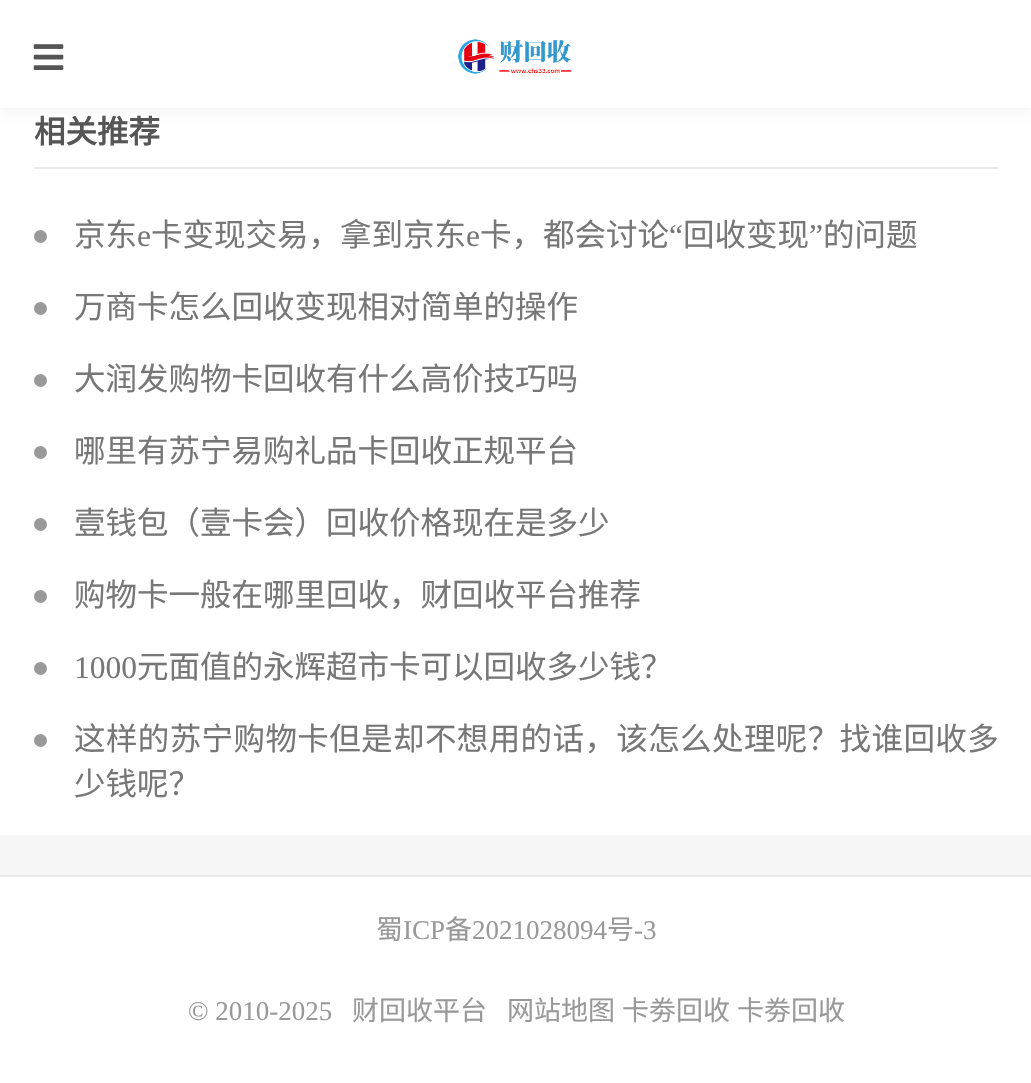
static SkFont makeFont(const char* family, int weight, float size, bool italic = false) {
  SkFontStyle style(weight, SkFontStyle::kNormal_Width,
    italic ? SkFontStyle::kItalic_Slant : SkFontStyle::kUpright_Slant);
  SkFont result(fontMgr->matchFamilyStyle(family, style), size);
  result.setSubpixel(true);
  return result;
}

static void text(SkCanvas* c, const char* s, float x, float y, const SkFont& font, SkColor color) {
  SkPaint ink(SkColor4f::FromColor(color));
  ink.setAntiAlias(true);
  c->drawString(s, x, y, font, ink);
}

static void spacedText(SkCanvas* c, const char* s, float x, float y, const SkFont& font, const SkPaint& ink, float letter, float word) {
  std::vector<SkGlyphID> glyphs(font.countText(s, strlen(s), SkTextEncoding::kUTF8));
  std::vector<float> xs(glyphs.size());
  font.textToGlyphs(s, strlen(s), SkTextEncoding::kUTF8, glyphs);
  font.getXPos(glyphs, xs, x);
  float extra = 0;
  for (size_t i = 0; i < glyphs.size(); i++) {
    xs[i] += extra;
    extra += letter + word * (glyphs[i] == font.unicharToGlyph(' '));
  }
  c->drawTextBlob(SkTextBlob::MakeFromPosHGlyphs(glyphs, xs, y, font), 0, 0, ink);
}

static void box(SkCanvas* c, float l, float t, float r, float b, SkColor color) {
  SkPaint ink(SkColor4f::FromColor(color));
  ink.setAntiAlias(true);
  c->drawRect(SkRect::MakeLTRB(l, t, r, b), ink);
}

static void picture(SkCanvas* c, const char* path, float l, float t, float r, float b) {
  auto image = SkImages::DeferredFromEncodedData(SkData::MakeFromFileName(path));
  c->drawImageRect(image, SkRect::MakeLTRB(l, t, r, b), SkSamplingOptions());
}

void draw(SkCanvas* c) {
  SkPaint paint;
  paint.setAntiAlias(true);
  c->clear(0xfff6f6f6);
  box(c, 0, 108, 1031, 835, 0xffffffff);
  paint.setColor(0x0d000000);
  paint.setMaskFilter(SkMaskFilter::MakeBlur(kNormal_SkBlurStyle, 5.5f));
  c->drawRect(SkRect::MakeLTRB(0, 2, 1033, 110), paint);
  paint.setMaskFilter(nullptr);
  box(c, 0, 0, 1031, 108, 0xffffffff);
  picture(c, "img_01.png", 33, 44, 64, 70);
  picture(c, "img_02.png", 458, 39, 571, 74);
  box(c, 34, 167, 999, 169, 0xffeaeaea);
  SkFont face1 = makeFont("Noto Sans CJK SC", 700, 31.5f);
  text(c, "相关推荐", 34, 143, face1, 0xff555555);
  paint.setColor(0xff999999);
  c->drawCircle(40.5f, 236.5f, 6.5f, paint);
  SkFont face2 = makeFont("Noto Sans CJK SC", 400, 31.5f);
  text(c, "京东", 74, 246, face2, 0xff777777);
  SkFont face3 = makeFont("Liberation Serif", 400, 31.5f);
  text(c, "e", 137, 246, face3, 0xff777777);
  text(c, "卡变现交易，拿到京东", 151, 246, face2, 0xff777777);
  text(c, "e", 466, 246, face3, 0xff777777);
  text(c, "卡，都会讨论", 480, 246, face2, 0xff777777);
  text(c, "“", 669, 246, face3, 0xff777777);
  text(c, "回收变现", 683, 246, face2, 0xff777777);
  text(c, "”", 809, 246, face3, 0xff777777);
  text(c, "的问题", 823, 246, face2, 0xff777777);
  c->drawCircle(40.5f, 308.5f, 6.5f, paint);
  text(c, "万商卡怎么回收变现相对简单的操作", 74, 318, face2, 0xff777777);
  c->drawCircle(40.5f, 380.5f, 6.5f, paint);
  text(c, "大润发购物卡回收有什么高价技巧吗", 74, 390, face2, 0xff777777);
  c->drawCircle(40.5f, 452.5f, 6.5f, paint);
  text(c, "哪里有苏宁易购礼品卡回收正规平台", 74, 462, face2, 0xff777777);
  c->drawCircle(40.5f, 524.5f, 6.5f, paint);
  text(c, "壹钱包（壹卡会）回收价格现在是多少", 74, 534, face2, 0xff777777);
  c->drawCircle(40.5f, 596.5f, 6.5f, paint);
  text(c, "购物卡一般在哪里回收，财回收平台推荐", 74, 606, face2, 0xff777777);
  c->drawCircle(40.5f, 668.5f, 6.5f, paint);
  text(c, "1000", 74, 678, face3, 0xff777777);
  text(c, "元面值的永辉超市卡可以回收多少钱？", 137, 678, face2, 0xff777777);
  c->drawCircle(40.5f, 740.5f, 6.5f, paint);
  paint.setColor(0xff777777);
  spacedText(c, "这样的苏宁购物卡但是却不想用的话，该怎么处理呢？找谁回收多", 74, 750, face2, paint, 0.4f, 0);
  text(c, "少钱呢？", 74, 795, face2, 0xff777777);
  box(c, 0, 877, 1031, 1083, 0xffffffff);
  box(c, 0, 875, 1031, 877, 0xffeaeaea);
  SkFont face4 = makeFont("Noto Sans CJK SC", 400, 27);
  text(c, "蜀", 376, 939, face4, 0xff999999);
  SkFont face5 = makeFont("Liberation Serif", 400, 27);
  text(c, "ICP", 403, 939, face5, 0xff999999);
  text(c, "备", 445, 939, face4, 0xff999999);
  text(c, "2021028094", 472, 939, face5, 0xff999999);
  text(c, "号", 607, 939, face4, 0xff999999);
  text(c, "-3", 634, 939, face5, 0xff999999);
  text(c, "© 2010-2025", 188, 1020, face5, 0xff999999);
  text(c, "财回收平台", 352, 1020, face4, 0xff999999);
  text(c, "网站地图", 507, 1020, face4, 0xff999999);
  text(c, "卡劵回收", 622, 1020, face4, 0xff999999);
  text(c, "卡劵回收", 737, 1020, face4, 0xff999999);
}
